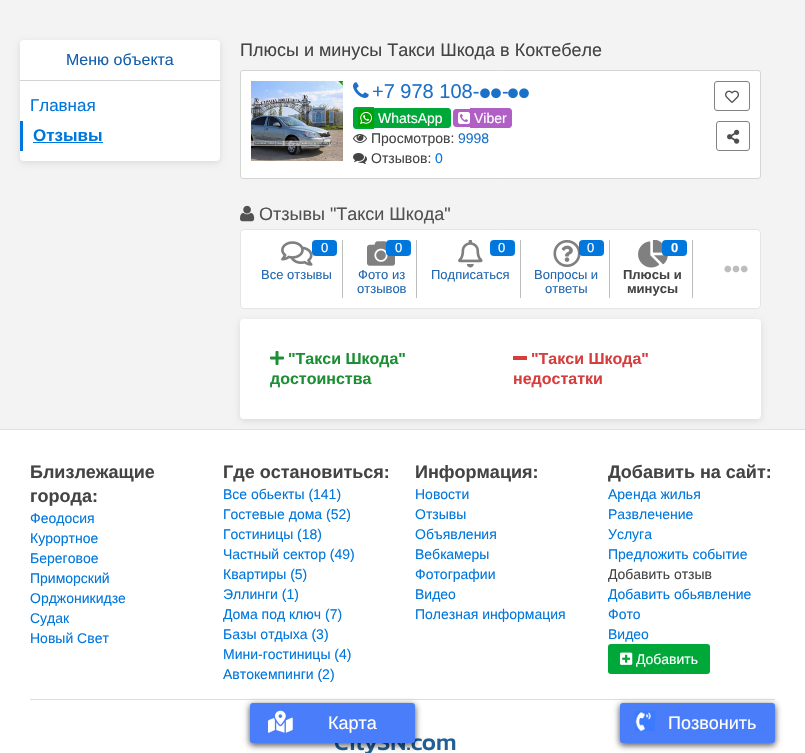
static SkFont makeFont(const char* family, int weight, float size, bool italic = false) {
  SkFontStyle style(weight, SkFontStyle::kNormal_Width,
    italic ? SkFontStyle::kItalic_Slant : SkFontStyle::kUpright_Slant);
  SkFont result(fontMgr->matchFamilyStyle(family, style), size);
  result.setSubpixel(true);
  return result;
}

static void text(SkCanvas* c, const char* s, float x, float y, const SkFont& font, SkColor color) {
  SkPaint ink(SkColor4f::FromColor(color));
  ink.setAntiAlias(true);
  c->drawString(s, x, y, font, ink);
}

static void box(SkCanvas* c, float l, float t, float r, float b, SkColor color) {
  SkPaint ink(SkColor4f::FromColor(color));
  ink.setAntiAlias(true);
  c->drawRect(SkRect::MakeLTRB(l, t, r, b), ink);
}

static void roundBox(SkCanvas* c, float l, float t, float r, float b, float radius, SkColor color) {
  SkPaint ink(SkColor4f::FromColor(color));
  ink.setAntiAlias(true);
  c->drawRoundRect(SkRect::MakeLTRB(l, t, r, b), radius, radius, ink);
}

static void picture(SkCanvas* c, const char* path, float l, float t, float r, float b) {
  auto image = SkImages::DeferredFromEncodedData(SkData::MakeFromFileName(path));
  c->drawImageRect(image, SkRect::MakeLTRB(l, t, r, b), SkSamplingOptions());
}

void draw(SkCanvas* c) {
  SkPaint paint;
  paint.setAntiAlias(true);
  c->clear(0xfff3f3f3);
  paint.setColor(0x1a000000);
  paint.setMaskFilter(SkMaskFilter::MakeBlur(kNormal_SkBlurStyle, 3));
  c->drawRoundRect(SkRect::MakeLTRB(20, 42, 220, 163), 4, 4, paint);
  paint.setMaskFilter(nullptr);
  roundBox(c, 20, 40, 220, 161, 4, 0xffffffff);
  box(c, 20, 80, 220, 81, 0xffd3d3d3);
  SkFont face1 = makeFont("Liberation Sans", 400, 16);
  text(c, "Меню объекта", 66, 65, face1, 0xff135eab);
  SkFont face2 = makeFont("Liberation Sans", 400, 17);
  text(c, "Главная", 30, 111, face2, 0xff0077dd);
  box(c, 20, 121, 23, 151, 0xff0077dd);
  SkFont face3 = makeFont("Liberation Sans", 700, 17);
  text(c, "Отзывы", 33, 141, face3, 0xff0077dd);
  box(c, 33, 142, 103, 143, 0xff0077dd);
  SkFont face4 = makeFont("Liberation Sans", 400, 18);
  text(c, "Плюсы и минусы Такси Шкода в Коктебеле", 240, 56, face4, 0xff444444);
  paint.setColor(0xffffffff);
  c->drawRoundRect(SkRect::MakeLTRB(240.5f, 70.5f, 760.5f, 178.5f), 2.5f, 2.5f, paint);
  paint.setStyle(SkPaint::kStroke_Style);
  paint.setStrokeWidth(1);
  paint.setColor(0xffd2d7d3);
  c->drawRoundRect(SkRect::MakeLTRB(240.5f, 70.5f, 760.5f, 178.5f), 2.5f, 2.5f, paint);
  picture(c, "img_01.png", 251, 81, 343, 161);
  picture(c, "img_02.png", 353, 82, 369, 98);
  SkFont face5 = makeFont("Liberation Sans", 400, 20);
  text(c, "+7 978 108-", 372, 98, face5, 0xff1b70c8);
  picture(c, "img_03.png", 480, 88, 490, 99);
  picture(c, "img_03.png", 491, 88, 501, 99);
  text(c, "-", 502, 98, face5, 0xff1b70c8);
  picture(c, "img_03.png", 508, 88, 518, 99);
  picture(c, "img_03.png", 519, 88, 529, 99);
  paint.setStyle(SkPaint::kFill_Style);
  paint.setColor(0xff00a739);
  c->drawPath(SkPathBuilder().moveTo(356, 107).lineTo(374, 107).lineTo(374, 129).lineTo(356, 129).cubicTo(354.5f, 129, 353, 127.5f, 353, 126).lineTo(353, 110).cubicTo(353, 108.5f, 354.5f, 107, 356, 107).close().detach(), paint);
  c->drawPath(SkPathBuilder().moveTo(374, 108).lineTo(448, 108).cubicTo(449.5f, 108, 451, 109.5f, 451, 111).lineTo(451, 125).cubicTo(451, 126.5f, 449.5f, 128, 448, 128).lineTo(374, 128).close().detach(), paint);
  roundBox(c, 358, 109, 374, 127, 2, 0xff01a201);
  picture(c, "img_04.png", 360, 112, 372, 124);
  SkFont face6 = makeFont("Liberation Sans", 400, 14);
  text(c, "WhatsApp", 378, 123, face6, 0xffffffff);
  paint.setColor(0xffb05fc5);
  c->drawPath(SkPathBuilder().moveTo(456, 109).lineTo(470, 109).lineTo(470, 127).lineTo(456, 127).cubicTo(454.5f, 127, 453, 125.5f, 453, 124).lineTo(453, 112).cubicTo(453, 110.5f, 454.5f, 109, 456, 109).close().detach(), paint);
  c->drawPath(SkPathBuilder().moveTo(470, 108).lineTo(509, 108).cubicTo(510.5f, 108, 512, 109.5f, 512, 111).lineTo(512, 125).cubicTo(512, 126.5f, 510.5f, 128, 509, 128).lineTo(470, 128).close().detach(), paint);
  picture(c, "img_05.png", 458, 112, 470, 124);
  text(c, "Viber", 474, 123, face6, 0xffffffff);
  picture(c, "img_06.png", 353, 134, 367, 143);
  text(c, "Просмотров:", 371, 143, face6, 0xff444444);
  text(c, "9998", 458, 143, face6, 0xff1b70c8);
  picture(c, "img_07.png", 353, 153, 367, 164);
  text(c, "Отзывов:", 371, 163, face6, 0xff444444);
  text(c, "0", 435, 163, face6, 0xff0077dd);
  paint.setStyle(SkPaint::kStroke_Style);
  paint.setColor(0xff828282);
  c->drawRoundRect(SkRect::MakeLTRB(714.5f, 81.5f, 749.5f, 110.5f), 2.5f, 2.5f, paint);
  picture(c, "img_08.png", 725, 90, 739, 103);
  c->drawRoundRect(SkRect::MakeLTRB(716.5f, 121.5f, 749.5f, 150.5f), 2.5f, 2.5f, paint);
  picture(c, "img_09.png", 727, 129, 740, 144);
  picture(c, "img_10.png", 240, 205, 255, 222);
  text(c, "Отзывы \"Такси Шкода\"", 259, 220, face4, 0xff525252);
  paint.setStyle(SkPaint::kFill_Style);
  paint.setColor(0xffffffff);
  c->drawRoundRect(SkRect::MakeLTRB(240.5f, 229.5f, 760.5f, 308.5f), 3.5f, 3.5f, paint);
  paint.setStyle(SkPaint::kStroke_Style);
  paint.setColor(0xffe3e6e3);
  c->drawRoundRect(SkRect::MakeLTRB(240.5f, 229.5f, 760.5f, 308.5f), 3.5f, 3.5f, paint);
  box(c, 342, 240, 343, 298, 0xffbdbdbd);
  picture(c, "img_11.png", 281, 241, 313, 266);
  roundBox(c, 312, 240, 337, 256, 4, 0xff0077dd);
  SkFont face7 = makeFont("Liberation Sans", 400, 13);
  text(c, "0", 321, 252, face7, 0xffffffff);
  text(c, "Все отзывы", 261, 279, face7, 0xff2167b0);
  box(c, 416, 240, 417, 298, 0xffbdbdbd);
  picture(c, "img_12.png", 367, 241, 395, 266);
  roundBox(c, 386, 240, 411, 256, 4, 0xff0077dd);
  text(c, "0", 395, 252, face7, 0xffffffff);
  text(c, "Фото из", 358, 279, face7, 0xff2167b0);
  text(c, "отзывов", 357, 293, face7, 0xff2167b0);
  box(c, 520, 240, 521, 298, 0xffbdbdbd);
  picture(c, "img_13.png", 458, 240, 483, 268);
  roundBox(c, 490, 240, 515, 256, 4, 0xff0077dd);
  text(c, "0", 498, 252, face7, 0xffffffff);
  text(c, "Подписаться", 431, 279, face7, 0xff2167b0);
  box(c, 609, 240, 610, 298, 0xffbdbdbd);
  picture(c, "img_14.png", 553, 240, 581, 267);
  roundBox(c, 579, 240, 604, 256, 4, 0xff0077dd);
  text(c, "0", 587, 252, face7, 0xffffffff);
  text(c, "Вопросы и", 534, 279, face7, 0xff2167b0);
  text(c, "ответы", 545, 293, face7, 0xff2167b0);
  box(c, 692, 240, 693, 298, 0xffbdbdbd);
  picture(c, "img_15.png", 638, 240, 668, 268);
  roundBox(c, 662, 240, 687, 256, 4, 0xff0077dd);
  SkFont face8 = makeFont("Liberation Sans", 700, 13);
  text(c, "0", 671, 252, face8, 0xffffffff);
  text(c, "Плюсы и", 623, 279, face8, 0xff444444);
  text(c, "минусы", 627, 293, face8, 0xff444444);
  picture(c, "img_16.png", 724, 265, 748, 273);
  paint.setStyle(SkPaint::kFill_Style);
  paint.setColor(0x1a000000);
  paint.setMaskFilter(SkMaskFilter::MakeBlur(kNormal_SkBlurStyle, 3));
  c->drawRoundRect(SkRect::MakeLTRB(240, 321, 761, 421), 4, 4, paint);
  paint.setMaskFilter(nullptr);
  roundBox(c, 240, 319, 761, 419, 4, 0xffffffff);
  picture(c, "img_17.png", 270, 351, 284, 365);
  SkFont face9 = makeFont("Liberation Sans", 700, 16);
  text(c, "\"Такси Шкода\"", 288, 364, face9, 0xff1c8f35);
  text(c, "достоинства", 270, 384, face9, 0xff1c8f35);
  box(c, 513, 356, 527, 360, 0xffd63e3e);
  text(c, "\"Такси Шкода\"", 531, 364, face9, 0xffd63e3e);
  text(c, "недостатки", 513, 384, face9, 0xffd63e3e);
  box(c, 0, 430, 805, 753, 0xffffffff);
  box(c, 30, 699, 775, 700, 0xffdddddd);
  picture(c, "img_21.png", 334, 738, 456, 753);
  paint.setColor(0x66000000);
  paint.setMaskFilter(SkMaskFilter::MakeBlur(kNormal_SkBlurStyle, 3));
  c->drawRoundRect(SkRect::MakeLTRB(250, 705, 415, 745), 3, 3, paint);
  paint.setMaskFilter(nullptr);
  paint.setMaskFilter(SkMaskFilter::MakeBlur(kNormal_SkBlurStyle, 3));
  c->drawRoundRect(SkRect::MakeLTRB(620, 705, 775, 745), 3, 3, paint);
  paint.setMaskFilter(nullptr);
  paint.setMaskFilter(SkMaskFilter::MakeBlur(kNormal_SkBlurStyle, 3));
  c->drawRoundRect(SkRect::MakeLTRB(250, 705, 415, 745), 3, 3, paint);
  paint.setMaskFilter(nullptr);
  roundBox(c, 250, 703, 415, 743, 3, 0xff497df9);
  picture(c, "img_18.png", 268, 710, 293, 733);
  text(c, "Карта", 328, 729, face4, 0xffffffff);
  paint.setMaskFilter(SkMaskFilter::MakeBlur(kNormal_SkBlurStyle, 3));
  c->drawRoundRect(SkRect::MakeLTRB(620, 705, 775, 745), 3, 3, paint);
  paint.setMaskFilter(nullptr);
  roundBox(c, 620, 703, 775, 743, 3, 0xff497df9);
  picture(c, "img_19.png", 635, 711, 655, 731);
  text(c, "Позвонить", 668, 729, face4, 0xffffffff);
  box(c, 0, 429, 805, 430, 0xffe0e0e0);
  SkFont face10 = makeFont("Liberation Sans", 700, 18);
  text(c, "Близлежащие", 30, 478, face10, 0xff444444);
  text(c, "города:", 30, 502, face10, 0xff444444);
  text(c, "Феодосия", 30, 523, face6, 0xff0077dd);
  text(c, "Курортное", 30, 543, face6, 0xff0077dd);
  text(c, "Береговое", 30, 563, face6, 0xff0077dd);
  text(c, "Приморский", 30, 583, face6, 0xff0077dd);
  text(c, "Орджоникидзе", 30, 603, face6, 0xff0077dd);
  text(c, "Судак", 30, 623, face6, 0xff0077dd);
  text(c, "Новый Свет", 30, 643, face6, 0xff0077dd);
  text(c, "Где остановиться:", 223, 478, face10, 0xff444444);
  text(c, "Все обьекты (141)", 223, 499, face6, 0xff0077dd);
  text(c, "Гостевые дома (52)", 223, 519, face6, 0xff0077dd);
  text(c, "Гостиницы (18)", 223, 539, face6, 0xff0077dd);
  text(c, "Частный сектор (49)", 223, 559, face6, 0xff0077dd);
  text(c, "Квартиры (5)", 223, 579, face6, 0xff0077dd);
  text(c, "Эллинги (1)", 223, 599, face6, 0xff0077dd);
  text(c, "Дома под ключ (7)", 223, 619, face6, 0xff0077dd);
  text(c, "Базы отдыха (3)", 223, 639, face6, 0xff0077dd);
  text(c, "Мини-гостиницы (4)", 223, 659, face6, 0xff0077dd);
  text(c, "Автокемпинги (2)", 223, 679, face6, 0xff0077dd);
  text(c, "Информация:", 415, 478, face10, 0xff444444);
  text(c, "Новости", 415, 499, face6, 0xff0077dd);
  text(c, "Отзывы", 415, 519, face6, 0xff0077dd);
  text(c, "Объявления", 415, 539, face6, 0xff0077dd);
  text(c, "Вебкамеры", 415, 559, face6, 0xff0077dd);
  text(c, "Фотографии", 415, 579, face6, 0xff0077dd);
  text(c, "Видео", 415, 599, face6, 0xff0077dd);
  text(c, "Полезная информация", 415, 619, face6, 0xff0077dd);
  text(c, "Добавить на сайт:", 608, 478, face10, 0xff444444);
  text(c, "Аренда жилья", 608, 499, face6, 0xff0077dd);
  text(c, "Развлечение", 608, 519, face6, 0xff0077dd);
  text(c, "Услуга", 608, 539, face6, 0xff0077dd);
  text(c, "Предложить событие", 608, 559, face6, 0xff0077dd);
  text(c, "Добавить отзыв", 608, 579, face6, 0xff444444);
  text(c, "Добавить обьявление", 608, 599, face6, 0xff0077dd);
  text(c, "Фото", 608, 619, face6, 0xff0077dd);
  text(c, "Видео", 608, 639, face6, 0xff0077dd);
  roundBox(c, 608, 644, 710, 674, 3, 0xff00a739);
  picture(c, "img_20.png", 620, 652, 633, 665);
  text(c, "Добавить", 636, 664, face6, 0xffffffff);
}
